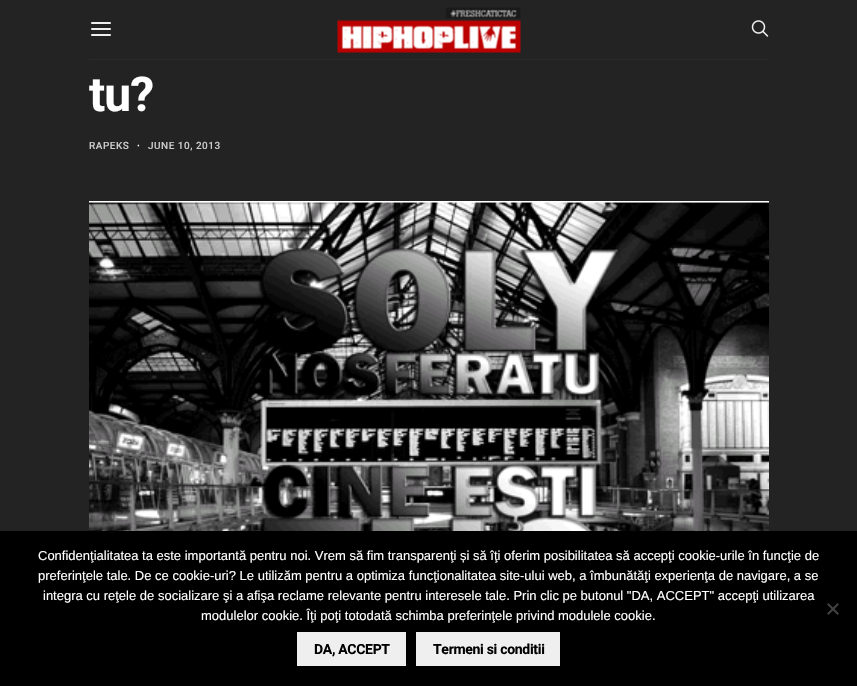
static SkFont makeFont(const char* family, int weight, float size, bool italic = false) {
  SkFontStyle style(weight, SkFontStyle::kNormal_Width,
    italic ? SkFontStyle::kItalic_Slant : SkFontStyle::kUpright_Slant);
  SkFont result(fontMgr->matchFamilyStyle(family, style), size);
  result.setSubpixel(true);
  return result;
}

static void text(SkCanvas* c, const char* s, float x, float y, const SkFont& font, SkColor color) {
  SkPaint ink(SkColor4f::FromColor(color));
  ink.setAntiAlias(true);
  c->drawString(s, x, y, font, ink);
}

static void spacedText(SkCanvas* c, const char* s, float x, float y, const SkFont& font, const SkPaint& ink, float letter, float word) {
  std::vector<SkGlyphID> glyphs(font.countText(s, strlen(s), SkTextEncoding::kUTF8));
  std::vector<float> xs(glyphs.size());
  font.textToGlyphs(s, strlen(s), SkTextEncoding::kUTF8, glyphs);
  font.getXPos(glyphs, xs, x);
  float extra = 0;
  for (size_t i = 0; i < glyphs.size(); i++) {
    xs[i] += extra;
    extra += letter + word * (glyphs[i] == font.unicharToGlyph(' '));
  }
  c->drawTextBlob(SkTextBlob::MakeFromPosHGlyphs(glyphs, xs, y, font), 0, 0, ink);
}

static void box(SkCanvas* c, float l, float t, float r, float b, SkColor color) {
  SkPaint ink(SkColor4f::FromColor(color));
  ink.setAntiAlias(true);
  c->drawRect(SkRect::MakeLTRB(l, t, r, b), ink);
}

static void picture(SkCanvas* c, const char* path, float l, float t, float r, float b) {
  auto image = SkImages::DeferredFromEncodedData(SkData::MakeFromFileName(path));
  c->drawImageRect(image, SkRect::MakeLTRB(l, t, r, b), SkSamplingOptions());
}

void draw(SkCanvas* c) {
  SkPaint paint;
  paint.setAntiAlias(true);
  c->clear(0xff232323);
  box(c, 89, 59, 769, 60, 0xff2b2b2b);
  picture(c, "img_01.png", 91, 22, 111, 36);
  picture(c, "img_02.png", 337, 7, 521, 53);
  picture(c, "img_03.png", 751, 20, 769, 37);
  SkFont face1 = makeFont("Roboto", 700, 48);
  paint.setColor(0xffffffff);
  spacedText(c, "tu?", 89, 111, face1, paint, -1, 0);
  SkFont face2 = makeFont("Roboto", 500, 10);
  paint.setColor(0xffcccccc);
  spacedText(c, "RAPEKS", 89, 149, face2, paint, 0.5f, 0);
  paint.setColor(0xffffffff);
  spacedText(c, "·", 137, 149, face2, paint, 0.5f, 0);
  paint.setColor(0xffcccccc);
  spacedText(c, "JUNE 10, 2013", 148, 149, face2, paint, 0.5f, 0);
  picture(c, "img_04.png", 89, 201, 769, 531);
  box(c, 0, 531, 857, 686, 0xff000000);
  SkFont face3 = makeFont("Liberation Sans", 400, 13);
  text(c, "Confidenţialitatea ta este importantă pentru noi. Vrem să fim transparenţi și să îţi oferim posibilitatea să accepţi cookie-urile în funcţie de", 38, 560, face3, 0xffffffff);
  text(c, "preferinţele tale. De ce cookie-uri? Le utilizăm pentru a optimiza funcţionalitatea site-ului web, a îmbunătăţi experienţa de navigare, a se", 38, 580, face3, 0xffffffff);
  text(c, "integra cu reţele de socializare şi a afişa reclame relevante pentru interesele tale. Prin clic pe butonul \"DA, ACCEPT\" accepţi utilizarea", 43, 600, face3, 0xffffffff);
  text(c, "modulelor cookie. Îţi poţi totodată schimba preferinţele privind modulele cookie.", 201, 620, face3, 0xffffffff);
  paint.setColor(0xff404040);
  c->drawPath(SkPathBuilder().moveTo(837.5f, 603).lineTo(839, 604.5f).lineTo(828.5f, 615).lineTo(827, 613.5f).close().detach(), paint);
  c->drawPath(SkPathBuilder().moveTo(827, 604.5f).lineTo(828.5f, 603).lineTo(839, 613.5f).lineTo(837.5f, 615).close().detach(), paint);
  box(c, 297, 632, 406, 666, 0xffefefef);
  SkFont face4 = makeFont("Roboto", 700, 14);
  paint.setColor(0xff000000);
  spacedText(c, "DA, ACCEPT", 314, 654, face4, paint, -0.3f, 0);
  box(c, 416, 632, 560, 666, 0xffefefef);
  spacedText(c, "Termeni si conditii", 433, 654, face4, paint, -0.3f, 0);
}
